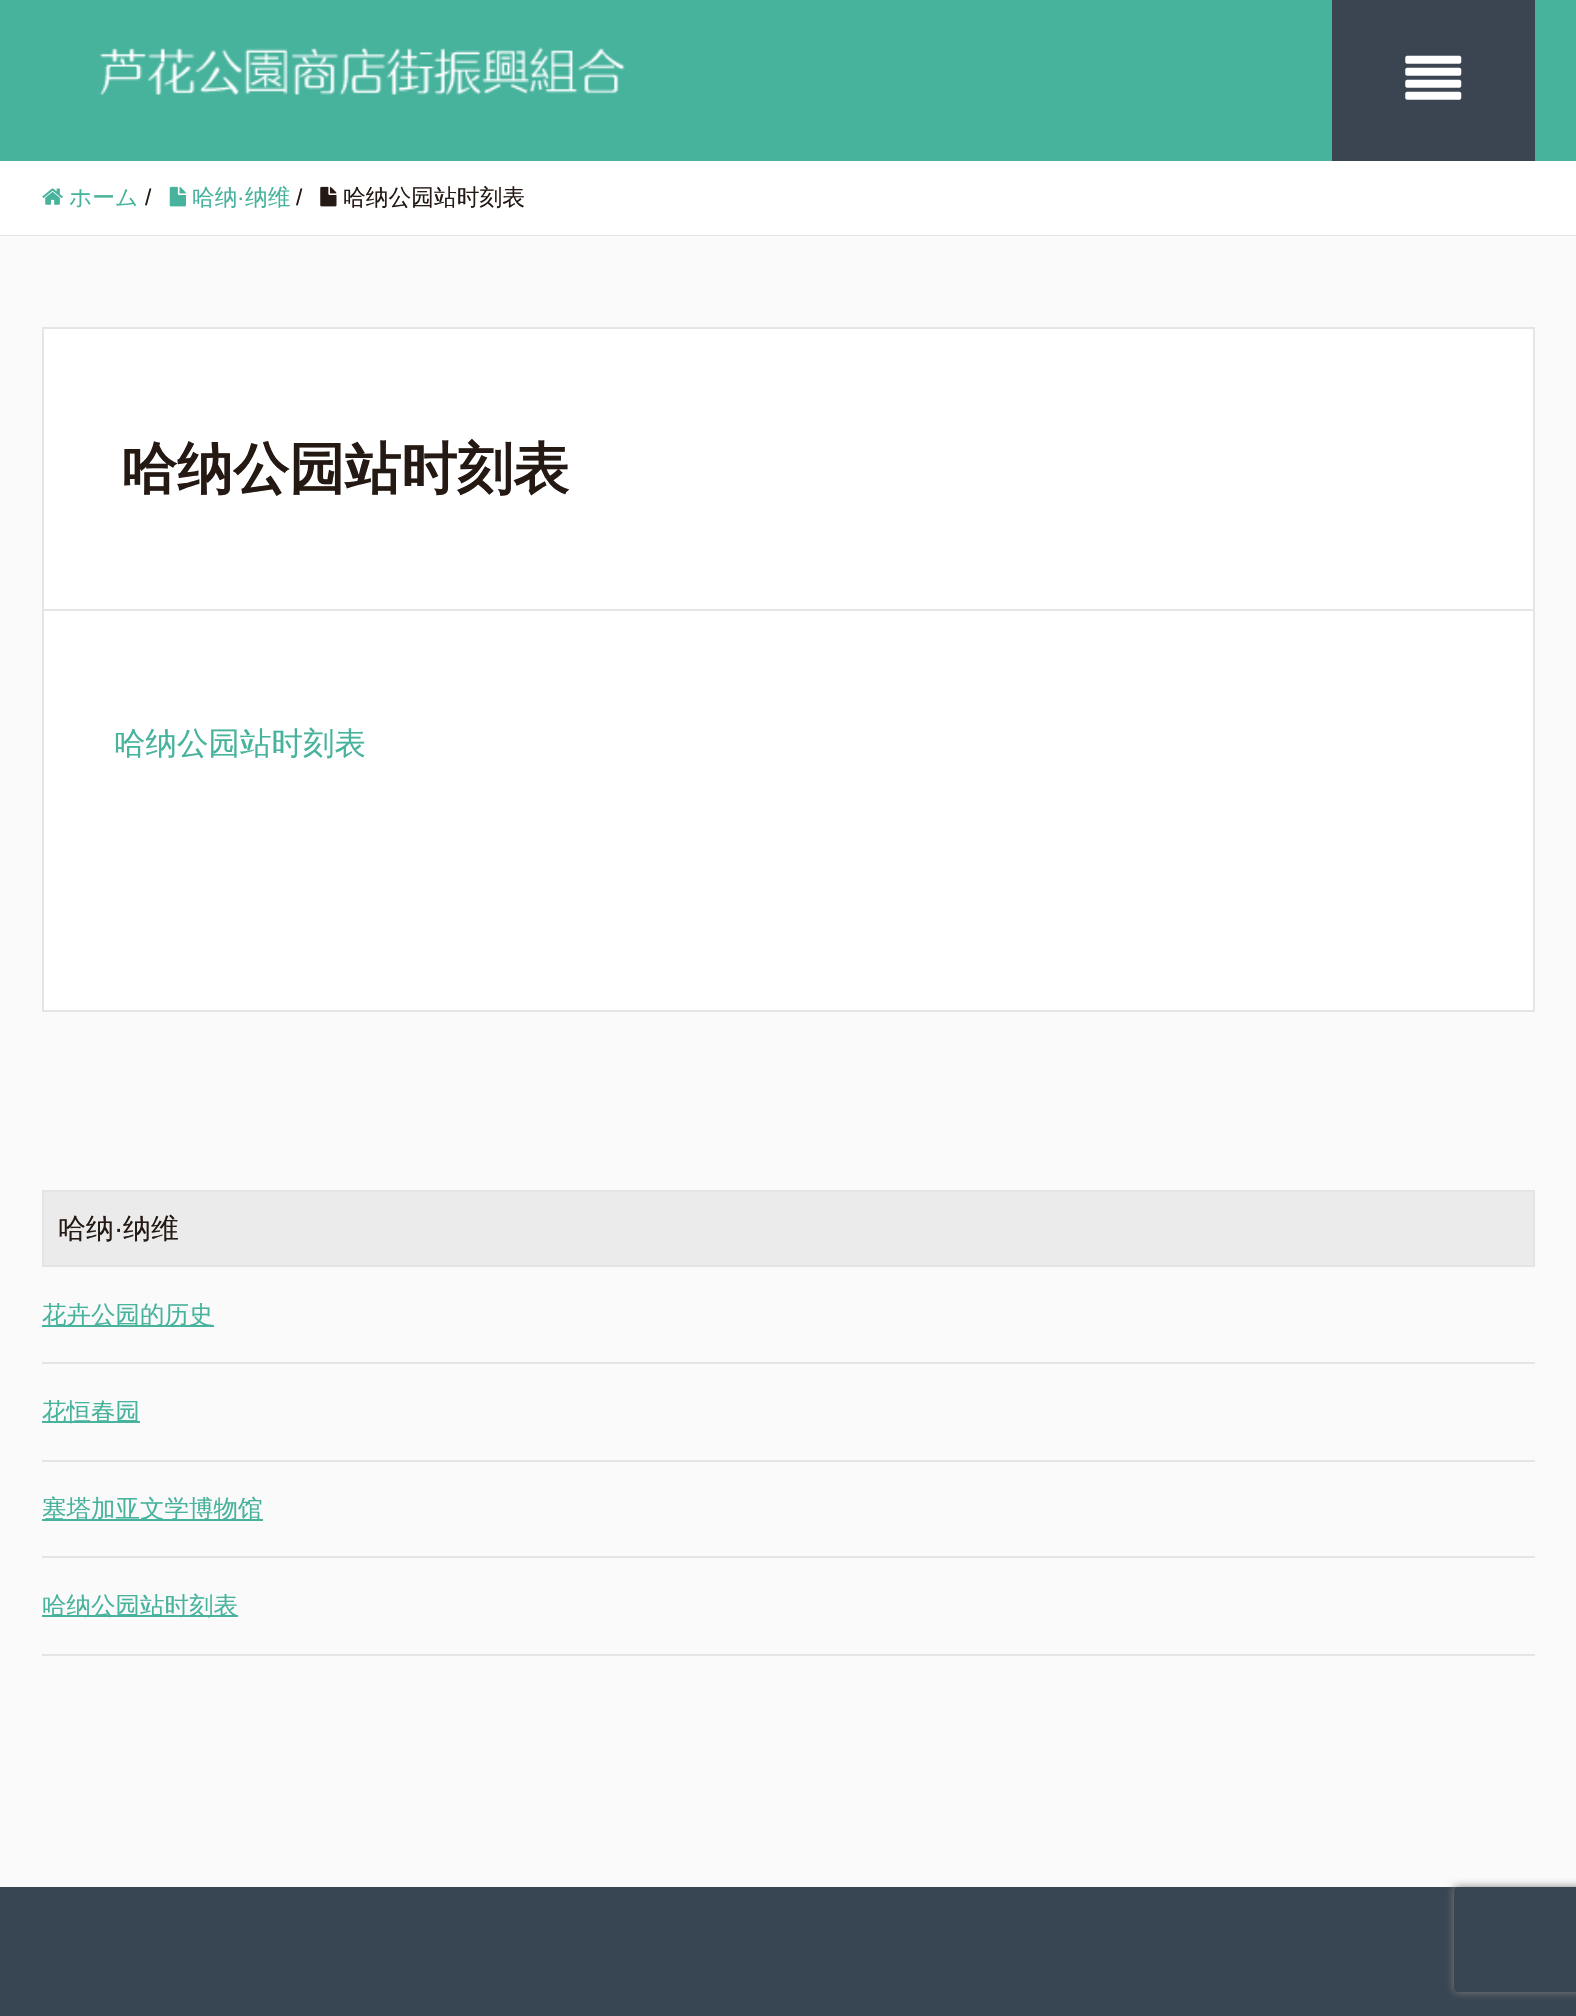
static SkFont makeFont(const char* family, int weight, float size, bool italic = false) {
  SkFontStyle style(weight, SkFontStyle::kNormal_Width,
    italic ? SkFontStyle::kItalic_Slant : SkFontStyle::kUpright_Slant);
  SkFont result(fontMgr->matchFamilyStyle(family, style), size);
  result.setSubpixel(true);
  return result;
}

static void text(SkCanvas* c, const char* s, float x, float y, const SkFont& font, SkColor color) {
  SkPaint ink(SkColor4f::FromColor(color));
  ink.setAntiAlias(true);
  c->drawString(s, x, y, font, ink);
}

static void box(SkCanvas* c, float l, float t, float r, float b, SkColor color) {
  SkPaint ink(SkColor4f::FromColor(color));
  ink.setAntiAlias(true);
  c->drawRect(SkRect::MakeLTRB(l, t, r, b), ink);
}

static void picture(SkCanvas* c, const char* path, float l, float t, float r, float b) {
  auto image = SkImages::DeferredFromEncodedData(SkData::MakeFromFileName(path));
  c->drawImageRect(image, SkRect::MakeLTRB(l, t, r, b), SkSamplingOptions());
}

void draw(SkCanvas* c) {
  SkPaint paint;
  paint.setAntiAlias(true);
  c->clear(0xff47b39d);
  picture(c, "img_01.png", 99, 47, 625, 95);
  box(c, 1332, 0, 1535, 161, 0xff3b4552);
  picture(c, "img_02.png", 1405, 55, 1462, 100);
  box(c, 0, 161, 1576, 235, 0xffffffff);
  box(c, 0, 235, 1576, 236, 0xffe5e5e5);
  picture(c, "img_03.png", 42, 188, 63, 205);
  SkFont face1 = makeFont("WenQuanYi Zen Hei", 500, 22.75f);
  text(c, "ホーム", 69, 205, face1, 0xff47b39d);
  SkFont face2 = makeFont("Liberation Sans", 400, 22.75f);
  text(c, "/", 145, 205, face2, 0xff241913);
  picture(c, "img_04.png", 169, 186, 186, 207);
  text(c, "哈纳", 192, 205, face1, 0xff47b39d);
  text(c, "·", 237, 205, face2, 0xff47b39d);
  text(c, "纳维", 245, 205, face1, 0xff47b39d);
  text(c, "/", 296, 205, face2, 0xff241913);
  picture(c, "img_05.png", 320, 186, 337, 207);
  text(c, "哈纳公园站时刻表", 343, 205, face1, 0xff241913);
  box(c, 0, 236, 1576, 1887, 0xfffafafa);
  paint.setColor(0xffffffff);
  c->drawRect(SkRect::MakeLTRB(43, 328, 1534, 1011), paint);
  paint.setStyle(SkPaint::kStroke_Style);
  paint.setStrokeWidth(2);
  paint.setColor(0xffe5e5e5);
  c->drawRect(SkRect::MakeLTRB(43, 328, 1534, 1011), paint);
  box(c, 44, 609, 1533, 611, 0xffe5e5e5);
  SkFont face3 = makeFont("WenQuanYi Zen Hei", 700, 56);
  text(c, "哈纳公园站时刻表", 121, 488, face3, 0xff241913);
  SkFont face4 = makeFont("WenQuanYi Zen Hei", 500, 31.5f);
  text(c, "哈纳公园站时刻表", 114, 754, face4, 0xff47b39d);
  paint.setStyle(SkPaint::kFill_Style);
  paint.setColor(0xffebebeb);
  c->drawRect(SkRect::MakeLTRB(43, 1191, 1534, 1266), paint);
  paint.setStyle(SkPaint::kStroke_Style);
  paint.setColor(0xffe4e4e4);
  c->drawRect(SkRect::MakeLTRB(43, 1191, 1534, 1266), paint);
  SkFont face5 = makeFont("WenQuanYi Zen Hei", 500, 28);
  text(c, "哈纳", 58, 1238, face5, 0xff241913);
  SkFont face6 = makeFont("Liberation Sans", 400, 28);
  text(c, "·", 114, 1238, face6, 0xff241913);
  text(c, "纳维", 123, 1238, face5, 0xff241913);
  box(c, 42, 1362, 1535, 1364, 0xffe5e5e5);
  box(c, 42, 1325, 214, 1327, 0xff47b39d);
  SkFont face7 = makeFont("WenQuanYi Zen Hei", 500, 24.5f);
  text(c, "花卉公园的历史", 42, 1323, face7, 0xff47b39d);
  box(c, 42, 1460, 1535, 1462, 0xffe5e5e5);
  box(c, 42, 1421, 140, 1423, 0xff47b39d);
  text(c, "花恒春园", 42, 1420, face7, 0xff47b39d);
  box(c, 42, 1556, 1535, 1558, 0xffe5e5e5);
  box(c, 42, 1519, 263, 1521, 0xff47b39d);
  text(c, "塞塔加亚文学博物馆", 42, 1517, face7, 0xff47b39d);
  box(c, 42, 1654, 1535, 1656, 0xffe5e5e5);
  box(c, 42, 1615, 238, 1617, 0xff47b39d);
  text(c, "哈纳公园站时刻表", 42, 1614, face7, 0xff47b39d);
  box(c, 0, 1887, 1576, 2016, 0xff384552);
  c->save();
  c->clipPath(SkPathBuilder(SkPathFillType::kEvenOdd).moveTo(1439, 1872).lineTo(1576, 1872).lineTo(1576, 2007).lineTo(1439, 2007).close().moveTo(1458, 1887).lineTo(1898, 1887).cubicTo(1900, 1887, 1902, 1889, 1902, 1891).lineTo(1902, 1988).cubicTo(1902, 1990, 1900, 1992, 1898, 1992).lineTo(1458, 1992).cubicTo(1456, 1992, 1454, 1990, 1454, 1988).lineTo(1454, 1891).cubicTo(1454, 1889, 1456, 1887, 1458, 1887).close().detach(), true);
  paint.setStyle(SkPaint::kFill_Style);
  paint.setColor(0xff808080);
  paint.setMaskFilter(SkMaskFilter::MakeBlur(kNormal_SkBlurStyle, 4.5f));
  c->drawRoundRect(SkRect::MakeLTRB(1454, 1887, 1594, 1992), 4, 4, paint);
  paint.setMaskFilter(nullptr);
  c->restore();
}
